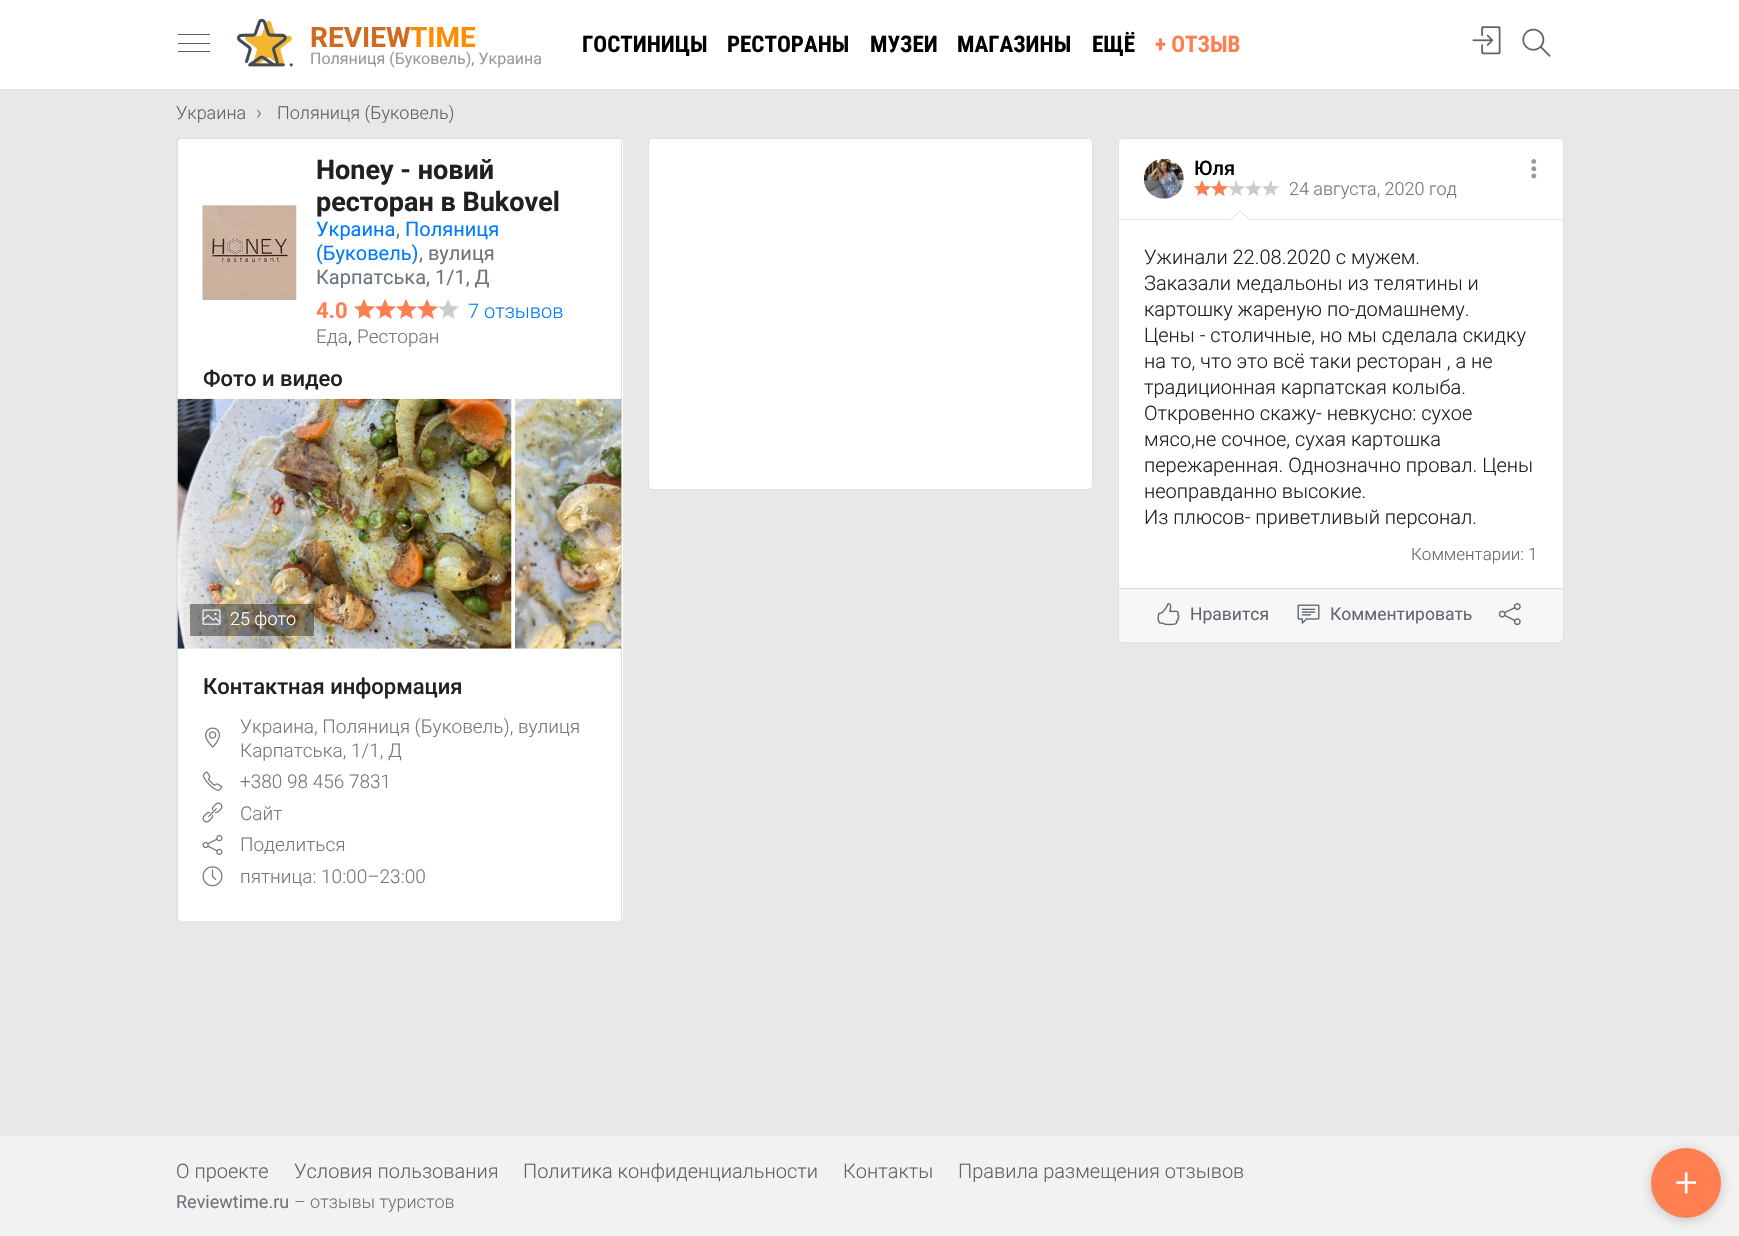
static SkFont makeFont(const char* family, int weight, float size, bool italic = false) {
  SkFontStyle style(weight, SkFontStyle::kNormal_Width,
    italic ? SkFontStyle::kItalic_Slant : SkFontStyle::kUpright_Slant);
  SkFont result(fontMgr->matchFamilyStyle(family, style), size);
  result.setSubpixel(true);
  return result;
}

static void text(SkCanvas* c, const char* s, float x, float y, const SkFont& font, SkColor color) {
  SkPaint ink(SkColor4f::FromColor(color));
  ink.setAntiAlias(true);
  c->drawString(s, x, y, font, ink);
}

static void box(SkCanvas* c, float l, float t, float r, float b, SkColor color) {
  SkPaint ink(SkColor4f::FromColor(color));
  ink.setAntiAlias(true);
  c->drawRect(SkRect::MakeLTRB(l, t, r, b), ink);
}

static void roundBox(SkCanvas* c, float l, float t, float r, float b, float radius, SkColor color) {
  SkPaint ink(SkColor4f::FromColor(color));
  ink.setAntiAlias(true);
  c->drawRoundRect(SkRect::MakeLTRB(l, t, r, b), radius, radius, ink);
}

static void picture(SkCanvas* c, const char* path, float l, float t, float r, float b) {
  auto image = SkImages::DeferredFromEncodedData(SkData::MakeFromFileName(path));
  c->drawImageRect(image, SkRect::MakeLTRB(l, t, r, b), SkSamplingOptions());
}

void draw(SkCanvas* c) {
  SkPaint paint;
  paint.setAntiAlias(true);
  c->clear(0xffe8e8e8);
  box(c, 0, 0, 1739, 89, 0xffffffff);
  box(c, 0, 89, 1739, 90, 0xffdee2e6);
  box(c, 178, 43, 210, 44, 0xff5d5f77);
  box(c, 178, 34, 210, 35, 0xff5d5f77);
  box(c, 178, 51, 210, 52, 0xff5d5f77);
  picture(c, "img_01.png", 237, 18, 293, 67);
  SkFont face1 = makeFont("Roboto", 700, 28);
  text(c, "REVIEW", 310, 47, face1, 0xffd2691e);
  text(c, "TIME", 410, 47, face1, 0xffff8c00);
  SkFont face2 = makeFont("Roboto", 400, 16);
  text(c, "Поляниця (Буковель), Украина", 310, 64, face2, 0xff999999);
  SkFont face3 = makeFont("Roboto Condensed", 700, 23);
  text(c, "ГОСТИНИЦЫ", 582, 52, face3, 0xff000000);
  text(c, "РЕСТОРАНЫ", 727, 52, face3, 0xff000000);
  text(c, "МУЗЕИ", 870, 52, face3, 0xff000000);
  text(c, "МАГАЗИНЫ", 957, 52, face3, 0xff000000);
  text(c, "ЕЩЁ", 1092, 52, face3, 0xff000000);
  text(c, "+ ОТЗЫВ", 1155, 52, face3, 0xffff7f50);
  picture(c, "img_02.png", 1472, 26, 1501, 55);
  picture(c, "img_03.png", 1522, 28, 1551, 57);
  SkFont face4 = makeFont("Roboto", 300, 18);
  text(c, "Украина", 176, 119, face4, 0xff5f6368);
  SkFont face5 = makeFont("Roboto", 300, 20);
  text(c, "›", 256, 119, face5, 0xff6c757d);
  text(c, "Поляниця (Буковель)", 277, 119, face4, 0xff5f6368);
  roundBox(c, 176, 138, 623, 921, 5, 0xffffffff);
  paint.setColor(0x1f000000);
  c->drawPath(SkPathBuilder(SkPathFillType::kEvenOdd).moveTo(181, 138).lineTo(618, 138).cubicTo(620, 138, 622, 140, 622, 142).lineTo(622, 916).cubicTo(622, 919, 620, 921, 618, 921).lineTo(181, 921).cubicTo(178, 921, 176, 919, 176, 916).lineTo(176, 142).cubicTo(176, 140, 178, 138, 181, 138).close().moveTo(181, 139).lineTo(618, 139).cubicTo(620, 139, 621, 140, 621, 142).lineTo(621, 916).cubicTo(621, 919, 620, 921, 618, 921).lineTo(181, 921).cubicTo(179, 921, 178, 919, 178, 916).lineTo(178, 142).cubicTo(178, 140, 179, 139, 181, 139).close().detach(), paint);
  picture(c, "img_04.png", 202, 205, 297, 300);
  SkFont face6 = makeFont("Roboto", 700, 27);
  text(c, "Honey - новий", 316, 179, face6, 0xff202124);
  text(c, "ресторан в Bukovel", 316, 211, face6, 0xff202124);
  SkFont face7 = makeFont("Roboto", 400, 20);
  text(c, "Украина", 316, 236, face7, 0xff007bff);
  text(c, ",", 396, 236, face7, 0xff6c757d);
  text(c, "Поляниця", 405, 236, face7, 0xff007bff);
  text(c, "(Буковель)", 316, 260, face7, 0xff007bff);
  text(c, ", вулиця", 419, 260, face7, 0xff6c757d);
  text(c, "Карпатська, 1/1, Д", 316, 284, face7, 0xff6c757d);
  SkFont face8 = makeFont("Roboto", 700, 22);
  text(c, "4.0", 316, 318, face8, 0xffff7f50);
  picture(c, "img_05.png", 354, 298, 460, 319);
  picture(c, "img_06.png", 354, 298, 439, 319);
  text(c, "7 отзывов", 468, 318, face5, 0xff007bff);
  SkFont face9 = makeFont("Roboto", 300, 19);
  text(c, "Еда", 316, 343, face9, 0xff777777);
  text(c, ",", 348, 343, face5, 0xff202124);
  text(c, "Ресторан", 357, 343, face9, 0xff777777);
  SkFont face10 = makeFont("Roboto", 500, 22);
  text(c, "Фото и видео", 203, 386, face10, 0xff202124);
  picture(c, "img_07.png", 177, 398, 512, 649);
  picture(c, "img_08.png", 515, 398, 622, 649);
  box(c, 190, 604, 314, 636, 0x66000000);
  picture(c, "img_09.png", 202, 609, 221, 625);
  text(c, "25 фото", 230, 625, face4, 0xffffffff);
  text(c, "Контактная информация", 203, 694, face10, 0xff202124);
  picture(c, "img_10.png", 205, 727, 220, 748);
  text(c, "Украина, Поляниця (Буковель), вулиця", 240, 733, face9, 0xff777777);
  text(c, "Карпатська, 1/1, Д", 240, 757, face9, 0xff777777);
  picture(c, "img_11.png", 202, 771, 223, 791);
  text(c, "+380 98 456 7831", 240, 788, face9, 0xff777777);
  picture(c, "img_12.png", 202, 802, 223, 823);
  text(c, "Сайт", 240, 820, face9, 0xff777777);
  picture(c, "img_13.png", 202, 835, 223, 855);
  text(c, "Поделиться", 240, 851, face9, 0xff777777);
  picture(c, "img_14.png", 202, 866, 223, 887);
  text(c, "пятница: 10:00–23:00", 240, 883, face9, 0xff777777);
  roundBox(c, 648, 138, 1093, 490, 5, 0xffffffff);
  paint.setStyle(SkPaint::kStroke_Style);
  paint.setStrokeWidth(1);
  c->drawRoundRect(SkRect::MakeLTRB(648.5f, 138.5f, 1092.5f, 489.5f), 4.5f, 4.5f, paint);
  roundBox(c, 1118, 138, 1564, 643, 5, 0xffffffff);
  c->drawRoundRect(SkRect::MakeLTRB(1118.5f, 138.5f, 1563.5f, 642.5f), 4.5f, 4.5f, paint);
  paint.setStyle(SkPaint::kFill_Style);
  paint.setColor(0xffffffff);
  c->drawPath(SkPathBuilder().moveTo(1123, 139).lineTo(1559, 139).cubicTo(1561, 139, 1563, 141, 1563, 143).lineTo(1563, 219).lineTo(1119, 219).lineTo(1119, 143).cubicTo(1119, 141, 1121, 139, 1123, 139).close().detach(), paint);
  picture(c, "img_15.png", 1143, 158, 1184, 199);
  SkFont face11 = makeFont("Roboto", 500, 20);
  text(c, "Юля", 1194, 175, face11, 0xff000000);
  picture(c, "img_16.png", 1531, 159, 1537, 179);
  picture(c, "img_17.png", 1193, 180, 1280, 196);
  picture(c, "img_18.png", 1194, 180, 1229, 196);
  text(c, "24 августа, 2020 год", 1289, 195, face4, 0xff6c757d);
  box(c, 1119, 219, 1563, 220, 0xffe8e8e8);
  box(c, 1230, 219, 1250, 220, 0xffffffff);
  picture(c, "img_19.png", 1230, 210, 1250, 220);
  text(c, "Ужинали 22.08.2020 с мужем.", 1144, 264, face5, 0xff202124);
  text(c, "Заказали медальоны из телятины и", 1144, 290, face5, 0xff202124);
  text(c, "картошку жареную по-домашнему.", 1144, 316, face5, 0xff202124);
  text(c, "Цены - столичные, но мы сделала скидку", 1144, 342, face5, 0xff202124);
  text(c, "на то, что это всё таки ресторан , а не", 1144, 368, face5, 0xff202124);
  text(c, "традиционная карпатская колыба.", 1144, 394, face5, 0xff202124);
  text(c, "Откровенно скажу- невкусно: сухое", 1144, 420, face5, 0xff202124);
  text(c, "мясо,не сочное, сухая картошка", 1144, 446, face5, 0xff202124);
  text(c, "пережаренная. Однозначно провал. Цены", 1144, 472, face5, 0xff202124);
  text(c, "неоправданно высокие.", 1144, 498, face5, 0xff202124);
  text(c, "Из плюсов- приветливый персонал.", 1144, 524, face5, 0xff202124);
  SkFont face12 = makeFont("Roboto", 300, 17);
  text(c, "Комментарии: 1", 1411, 560, face12, 0xff606770);
  box(c, 1119, 589, 1563, 641, 0x08000000);
  box(c, 1119, 588, 1563, 589, 0xffd8d8d8);
  picture(c, "img_20.png", 1157, 603, 1180, 626);
  SkFont face13 = makeFont("Roboto", 400, 17.5f);
  text(c, "Нравится", 1190, 620, face13, 0xff606770);
  picture(c, "img_21.png", 1297, 604, 1320, 624);
  text(c, "Комментировать", 1330, 620, face13, 0xff606770);
  picture(c, "img_22.png", 1498, 603, 1521, 626);
  box(c, 0, 1136, 1739, 1236, 0xfff2f2f2);
  box(c, 0, 1135, 1739, 1136, 0xffe4e4e4);
  text(c, "О проекте", 176, 1178, face5, 0xff5f6368);
  text(c, "Условия пользования", 294, 1178, face5, 0xff5f6368);
  text(c, "Политика конфиденциальности", 523, 1178, face5, 0xff5f6368);
  text(c, "Контакты", 843, 1178, face5, 0xff5f6368);
  text(c, "Правила размещения отзывов", 958, 1178, face5, 0xff5f6368);
  SkFont face14 = makeFont("Roboto", 400, 18);
  text(c, "Reviewtime.ru", 176, 1208, face14, 0xff6c757d);
  text(c, "– отзывы туристов", 294, 1208, face4, 0xff6c757d);
  paint.setColor(0x33000000);
  paint.setMaskFilter(SkMaskFilter::MakeBlur(kNormal_SkBlurStyle, 6));
  c->drawRoundRect(SkRect::MakeLTRB(1651, 1150, 1721, 1220), 35, 35, paint);
  paint.setMaskFilter(nullptr);
  paint.setColor(0xffff7f50);
  c->drawCircle(1686, 1183, 35, paint);
  SkFont face15 = makeFont("Roboto", 300, 40);
  text(c, "+", 1675, 1196, face15, 0xffffffff);
}
